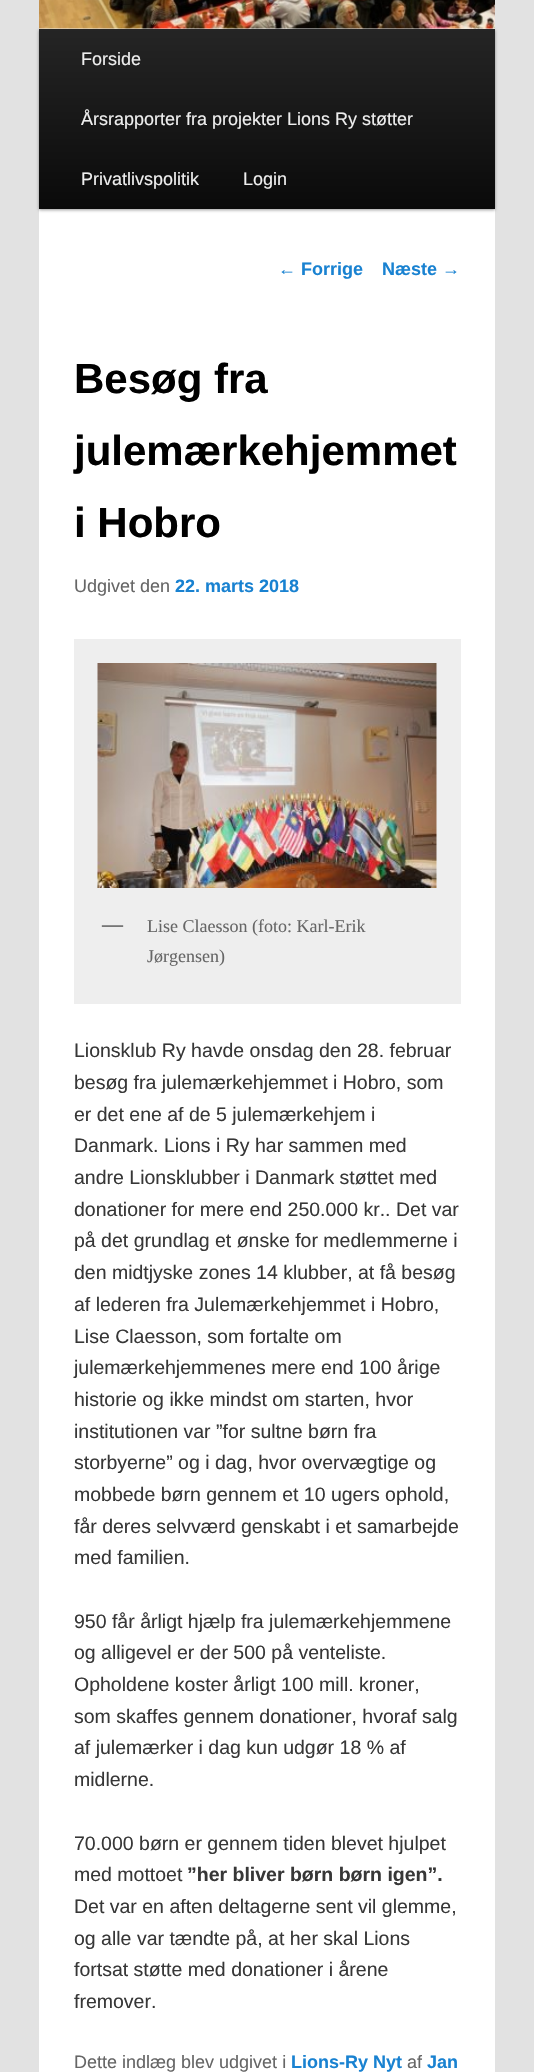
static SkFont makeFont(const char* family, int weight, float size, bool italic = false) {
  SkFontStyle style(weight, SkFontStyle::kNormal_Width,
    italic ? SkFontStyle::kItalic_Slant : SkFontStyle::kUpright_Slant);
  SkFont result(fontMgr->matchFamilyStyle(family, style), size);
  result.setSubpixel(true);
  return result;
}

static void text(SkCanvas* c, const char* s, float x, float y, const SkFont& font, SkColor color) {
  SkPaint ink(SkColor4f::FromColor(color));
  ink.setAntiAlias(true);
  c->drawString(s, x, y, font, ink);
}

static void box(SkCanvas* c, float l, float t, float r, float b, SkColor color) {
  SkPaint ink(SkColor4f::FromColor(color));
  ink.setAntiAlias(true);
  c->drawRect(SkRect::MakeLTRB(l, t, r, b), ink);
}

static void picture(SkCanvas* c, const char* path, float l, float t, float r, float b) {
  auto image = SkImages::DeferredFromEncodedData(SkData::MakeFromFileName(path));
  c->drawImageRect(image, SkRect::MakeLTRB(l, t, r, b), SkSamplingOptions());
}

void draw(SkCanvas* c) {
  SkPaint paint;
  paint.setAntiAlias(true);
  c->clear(0xffe2e2e2);
  box(c, 39, 28, 495, 2072, 0xffffffff);
  paint.setColor(0x66000000);
  paint.setMaskFilter(SkMaskFilter::MakeBlur(kNormal_SkBlurStyle, 1.5f));
  c->drawRect(SkRect::MakeLTRB(39, 30, 495, 210), paint);
  paint.setMaskFilter(nullptr);
  picture(c, "img_01.png", 39, 0, 495, 29);
  {
    const SkColor colors[] = {0xff252525, 0xff0a0a0a};
    const float stops[] = {0, 1};
    const SkPoint ends[] = {{267, 28}, {267, 209}};
    paint.setShader(SkGradientShader::MakeLinear(ends, colors, stops, 2, SkTileMode::kClamp));
    paint.setAlpha(255);
  }
  c->drawRect(SkRect::MakeLTRB(39, 29, 495, 209), paint);
  SkFont face1 = makeFont("Liberation Sans", 400, 18);
  text(c, "Forside", 81, 65, face1, 0xffeeeeee);
  text(c, "Årsrapporter fra projekter Lions Ry støtter", 81, 125, face1, 0xffeeeeee);
  text(c, "Privatlivspolitik", 81, 185, face1, 0xffeeeeee);
  text(c, "Login", 243, 185, face1, 0xffeeeeee);
  text(c, "←", 278, 275, face1, 0xff1982d1);
  SkFont face2 = makeFont("Liberation Sans", 700, 18);
  text(c, "Forrige", 301, 275, face2, 0xff1982d1);
  text(c, "Næste", 382, 275, face2, 0xff1982d1);
  text(c, "→", 442, 275, face1, 0xff1982d1);
  SkFont face3 = makeFont("Liberation Sans", 700, 42);
  text(c, "Besøg fra", 74, 393, face3, 0xff000000);
  text(c, "julemærkehjemmet", 74, 465, face3, 0xff000000);
  text(c, "i Hobro", 74, 537, face3, 0xff000000);
  text(c, "Udgivet den", 74, 592, face1, 0xff666666);
  text(c, "22. marts 2018", 175, 592, face2, 0xff1982d1);
  box(c, 74, 639, 461, 1004, 0xffeeeeee);
  picture(c, "img_02.png", 97, 663, 437, 888);
  SkFont face4 = makeFont("Liberation Serif", 700, 21);
  text(c, "—", 102, 931, face4, 0xff666666);
  SkFont face5 = makeFont("Liberation Serif", 400, 18);
  text(c, "Lise Claesson (foto: Karl-Erik", 147, 932, face5, 0xff666666);
  text(c, "Jørgensen)", 147, 962, face5, 0xff666666);
  SkFont face6 = makeFont("Liberation Sans", 400, 19.5f);
  text(c, "Lionsklub Ry havde onsdag den 28. februar", 74, 1057, face6, 0xff373737);
  text(c, "besøg fra julemærkehjemmet i Hobro, som", 74, 1089, face6, 0xff373737);
  text(c, "er det ene af de 5 julemærkehjem i", 74, 1121, face6, 0xff373737);
  text(c, "Danmark. Lions i Ry har sammen med", 74, 1152, face6, 0xff373737);
  text(c, "andre Lionsklubber i Danmark støttet med", 74, 1184, face6, 0xff373737);
  text(c, "donationer for mere end 250.000 kr.. Det var", 74, 1216, face6, 0xff373737);
  text(c, "på det grundlag et ønske for medlemmerne i", 74, 1247, face6, 0xff373737);
  text(c, "den midtjyske zones 14 klubber, at få besøg", 74, 1279, face6, 0xff373737);
  text(c, "af lederen fra Julemærkehjemmet i Hobro,", 74, 1311, face6, 0xff373737);
  text(c, "Lise Claesson, som fortalte om", 74, 1343, face6, 0xff373737);
  text(c, "julemærkehjemmenes mere end 100 årige", 74, 1374, face6, 0xff373737);
  text(c, "historie og ikke mindst om starten, hvor", 74, 1406, face6, 0xff373737);
  text(c, "institutionen var ”for sultne børn fra", 74, 1438, face6, 0xff373737);
  text(c, "storbyerne” og i dag, hvor overvægtige og", 74, 1469, face6, 0xff373737);
  text(c, "mobbede børn gennem et 10 ugers ophold,", 74, 1501, face6, 0xff373737);
  text(c, "får deres selvværd genskabt i et samarbejde", 74, 1533, face6, 0xff373737);
  text(c, "med familien.", 74, 1564, face6, 0xff373737);
  text(c, "950 får årligt hjælp fra julemærkehjemmene", 74, 1628, face6, 0xff373737);
  text(c, "og alligevel er der 500 på venteliste.", 74, 1659, face6, 0xff373737);
  text(c, "Opholdene koster årligt 100 mill. kroner,", 74, 1691, face6, 0xff373737);
  text(c, "som skaffes gennem donationer, hvoraf salg", 74, 1723, face6, 0xff373737);
  text(c, "af julemærker i dag kun udgør 18 % af", 74, 1754, face6, 0xff373737);
  text(c, "midlerne.", 74, 1786, face6, 0xff373737);
  text(c, "70.000 børn er gennem tiden blevet hjulpet", 74, 1850, face6, 0xff373737);
  text(c, "med mottoet", 74, 1881, face6, 0xff373737);
  SkFont face7 = makeFont("Liberation Sans", 700, 19.5f);
  text(c, "”her bliver børn børn igen”.", 187, 1881, face7, 0xff373737);
  text(c, "Det var en aften deltagerne sent vil glemme,", 74, 1913, face6, 0xff373737);
  text(c, "og alle var tændte på, at her skal Lions", 74, 1945, face6, 0xff373737);
  text(c, "fortsat støtte med donationer i årene", 74, 1976, face6, 0xff373737);
  text(c, "fremover.", 74, 2008, face6, 0xff373737);
  text(c, "Dette indlæg blev udgivet i", 74, 2068, face1, 0xff666666);
  text(c, "Lions-Ry Nyt", 291, 2068, face2, 0xff1982d1);
  text(c, "af", 407, 2068, face1, 0xff666666);
  text(c, "Jan", 427, 2068, face2, 0xff1982d1);
}
